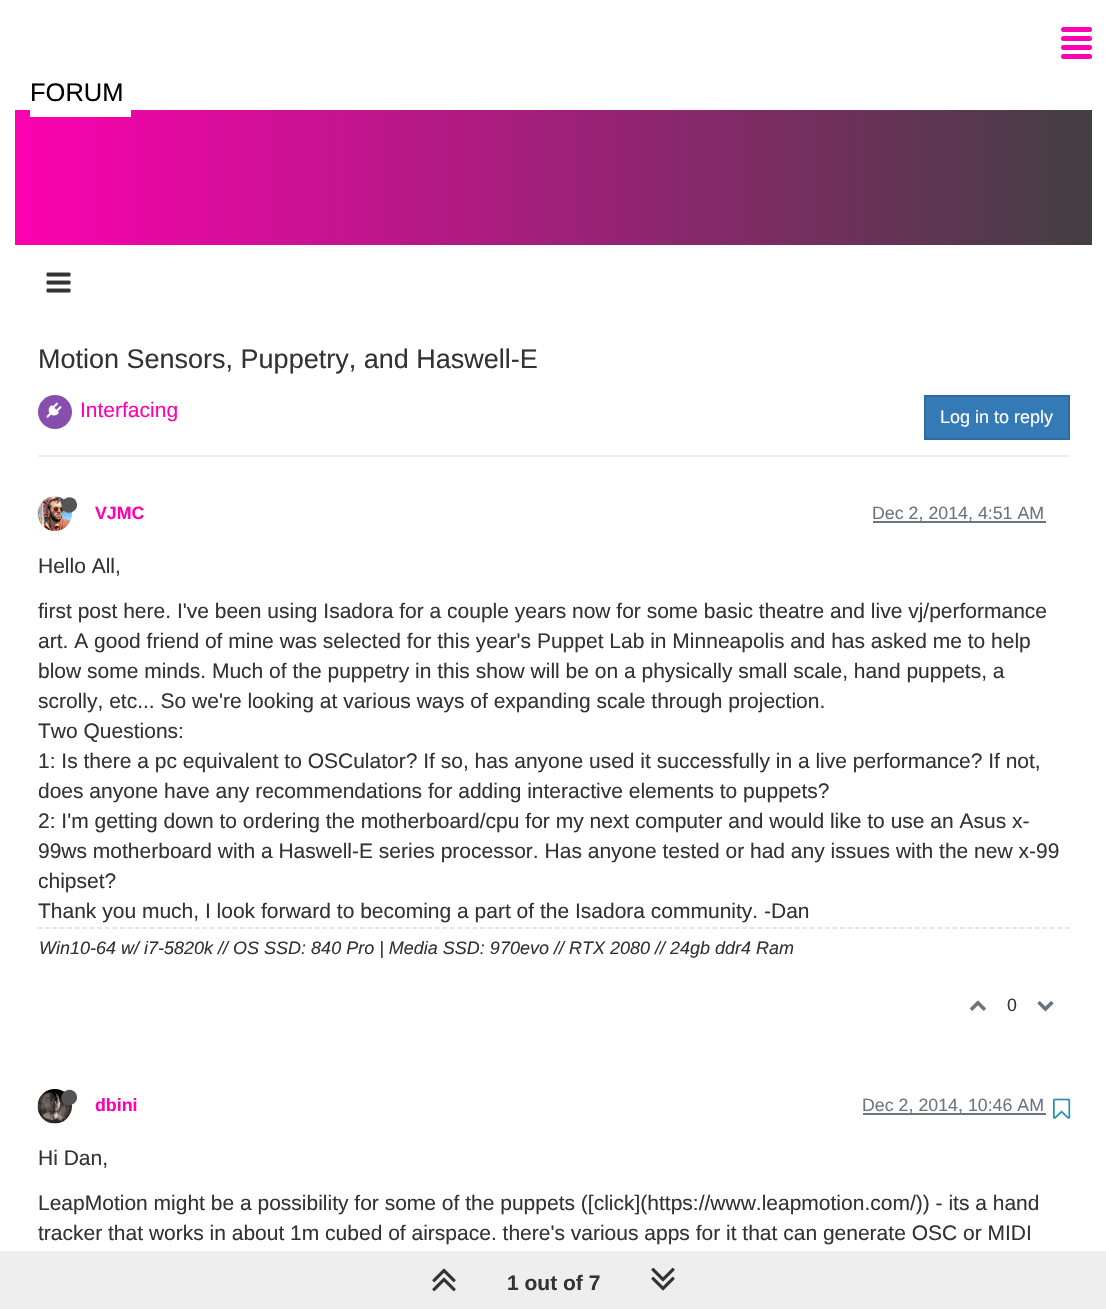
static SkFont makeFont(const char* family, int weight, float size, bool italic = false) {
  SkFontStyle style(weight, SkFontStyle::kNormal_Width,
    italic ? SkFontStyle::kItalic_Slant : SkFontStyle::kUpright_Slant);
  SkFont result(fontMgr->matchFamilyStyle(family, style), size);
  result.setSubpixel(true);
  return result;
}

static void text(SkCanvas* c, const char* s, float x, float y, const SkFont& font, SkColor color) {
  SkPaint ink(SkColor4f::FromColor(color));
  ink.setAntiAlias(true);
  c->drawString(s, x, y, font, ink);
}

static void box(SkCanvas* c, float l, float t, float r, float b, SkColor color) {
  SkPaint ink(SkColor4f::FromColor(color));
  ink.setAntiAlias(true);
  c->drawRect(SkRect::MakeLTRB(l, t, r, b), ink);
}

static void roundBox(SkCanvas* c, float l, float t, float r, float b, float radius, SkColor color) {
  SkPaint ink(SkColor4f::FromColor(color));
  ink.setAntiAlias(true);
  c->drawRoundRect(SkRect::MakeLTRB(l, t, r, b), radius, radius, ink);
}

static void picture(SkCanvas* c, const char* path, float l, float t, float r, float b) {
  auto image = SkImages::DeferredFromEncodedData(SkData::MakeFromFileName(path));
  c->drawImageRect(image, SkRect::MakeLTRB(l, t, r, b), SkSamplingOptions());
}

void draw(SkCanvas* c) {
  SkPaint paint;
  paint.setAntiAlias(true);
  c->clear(0xffffffff);
  {
    const SkColor colors[] = {0xffff00b2, 0xff404040};
    const float stops[] = {0, 1};
    const SkPoint ends[] = {{0, 655}, {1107, 655}};
    paint.setShader(SkGradientShader::MakeLinear(ends, colors, stops, 2, SkTileMode::kClamp));
    paint.setAlpha(255);
  }
  c->drawRect(SkRect::MakeLTRB(15, 110, 1092, 245), paint);
  roundBox(c, 1061, 27, 1092, 32, 2.5f, 0xffff00b2);
  roundBox(c, 1061, 36, 1092, 41, 2.5f, 0xffff00b2);
  roundBox(c, 1061, 45, 1092, 50, 2.5f, 0xffff00b2);
  roundBox(c, 1061, 54, 1092, 59, 2.5f, 0xffff00b2);
  box(c, 30, 110, 131, 117, 0xffffffff);
  SkFont face1 = makeFont("Liberation Sans", 400, 25.5f);
  text(c, "FORUM", 30, 101, face1, 0xff000000);
  picture(c, "img_01.png", 46, 272, 71, 293);
  SkFont face2 = makeFont("Liberation Sans", 400, 27);
  text(c, "Motion Sensors, Puppetry, and Haswell-E", 38, 368, face2, 0xff333333);
  box(c, 38, 455, 1070, 457, 0xffeeeeee);
  paint.setShader(nullptr);
  paint.setColor(0xff874ead);
  c->drawCircle(55, 412, 17, paint);
  picture(c, "img_02.png", 46, 402, 62, 418);
  SkFont face3 = makeFont("Liberation Sans", 400, 21);
  text(c, "Interfacing", 80, 417, face3, 0xffff00b2);
  paint.setColor(0xff337ab7);
  c->drawRect(SkRect::MakeLTRB(925, 396, 1069, 439), paint);
  paint.setStyle(SkPaint::kStroke_Style);
  paint.setStrokeWidth(2);
  paint.setColor(0xff2e6da4);
  c->drawRect(SkRect::MakeLTRB(925, 396, 1069, 439), paint);
  SkFont face4 = makeFont("Liberation Sans", 400, 18);
  text(c, "Log in to reply", 940, 423, face4, 0xffffffff);
  picture(c, "img_03.png", 37, 496, 72, 531);
  paint.setStyle(SkPaint::kFill_Style);
  paint.setColor(0xff555555);
  c->drawPath(SkPathBuilder().moveTo(76, 501).cubicTo(81, 510, 67.5f, 517.5f, 62.5f, 509).cubicTo(57.5f, 500, 71, 492.5f, 76, 501).close().detach(), paint);
  SkFont face5 = makeFont("Liberation Sans", 700, 17.8f);
  text(c, "VJMC", 95, 519, face5, 0xffff00b2);
  box(c, 873, 521, 1046, 523, 0xff6c757d);
  SkFont face6 = makeFont("Liberation Sans", 400, 17.8f);
  text(c, "Dec 2, 2014, 4:51 AM", 872, 519, face6, 0xff6c757d);
  text(c, "Hello All,", 38, 573, face3, 0xff333333);
  text(c, "first post here. I've been using Isadora for a couple years now for some basic theatre and live vj/performance", 38, 618, face3, 0xff333333);
  text(c, "art. A good friend of mine was selected for this year's Puppet Lab in Minneapolis and has asked me to help", 38, 648, face3, 0xff333333);
  text(c, "blow some minds. Much of the puppetry in this show will be on a physically small scale, hand puppets, a", 38, 678, face3, 0xff333333);
  text(c, "scrolly, etc... So we're looking at various ways of expanding scale through projection.", 38, 708, face3, 0xff333333);
  text(c, "Two Questions:", 38, 738, face3, 0xff333333);
  text(c, "1: Is there a pc equivalent to OSCulator? If so, has anyone used it successfully in a live performance? If not,", 38, 768, face3, 0xff333333);
  text(c, "does anyone have any recommendations for adding interactive elements to puppets?", 38, 798, face3, 0xff333333);
  text(c, "2: I'm getting down to ordering the motherboard/cpu for my next computer and would like to use an Asus x-", 38, 828, face3, 0xff333333);
  text(c, "99ws motherboard with a Haswell-E series processor. Has anyone tested or had any issues with the new x-99", 38, 858, face3, 0xff333333);
  text(c, "chipset?", 38, 888, face3, 0xff333333);
  text(c, "Thank you much, I look forward to becoming a part of the Isadora community. -Dan", 38, 918, face3, 0xff333333);
  paint.setStyle(SkPaint::kStroke_Style);
  paint.setStrokeWidth(1.5f);
  paint.setColor(0xffdedede);
  paint.setPathEffect(SkDashPathEffect::Make({{4.5f, 3}}, 0));
  c->drawPath(SkPathBuilder().moveTo(37.5f, 928).lineTo(1069.5f, 928).detach(), paint);
  paint.setPathEffect(nullptr);
  SkFont face7 = makeFont("Liberation Sans", 400, 18, true);
  text(c, "Win10-64 w/ i7-5820k // OS SSD: 840 Pro | Media SSD: 970evo // RTX 2080 // 24gb ddr4 Ram", 39, 954, face7, 0xff333333);
  picture(c, "img_04.png", 970, 1000, 986, 1011);
  text(c, "0", 1007, 1011, face6, 0xff333333);
  picture(c, "img_05.png", 1037, 1001, 1054, 1012);
  picture(c, "img_06.png", 37, 1089, 72, 1124);
  paint.setStyle(SkPaint::kFill_Style);
  paint.setColor(0xff555555);
  c->drawPath(SkPathBuilder().moveTo(76, 1093.5f).cubicTo(81, 1102.5f, 67.5f, 1110, 62.5f, 1101.5f).cubicTo(57.5f, 1092.5f, 71, 1085, 76, 1093.5f).close().detach(), paint);
  text(c, "dbini", 95, 1111, face5, 0xffff00b2);
  box(c, 863, 1113, 1046, 1115, 0xff6c757d);
  text(c, "Dec 2, 2014, 10:46 AM", 862, 1111, face6, 0xff6c757d);
  picture(c, "img_07.png", 1053, 1098, 1071, 1119);
  text(c, "Hi Dan,", 38, 1165, face3, 0xff333333);
  text(c, "LeapMotion might be a possibility for some of the puppets ([click](https://www.leapmotion.com/)) - its a hand", 38, 1210, face3, 0xff333333);
  text(c, "tracker that works in about 1m cubed of airspace. there's various apps for it that can generate OSC or MIDI", 38, 1240, face3, 0xff333333);
  box(c, 0, 1251, 1106, 1309, 0xffeeeeee);
  picture(c, "img_08.png", 432, 1268, 456, 1292);
  SkFont face8 = makeFont("Liberation Sans", 700, 21);
  text(c, "1 out of 7", 507, 1290, face8, 0xff333333);
  picture(c, "img_09.png", 651, 1267, 675, 1291);
}
